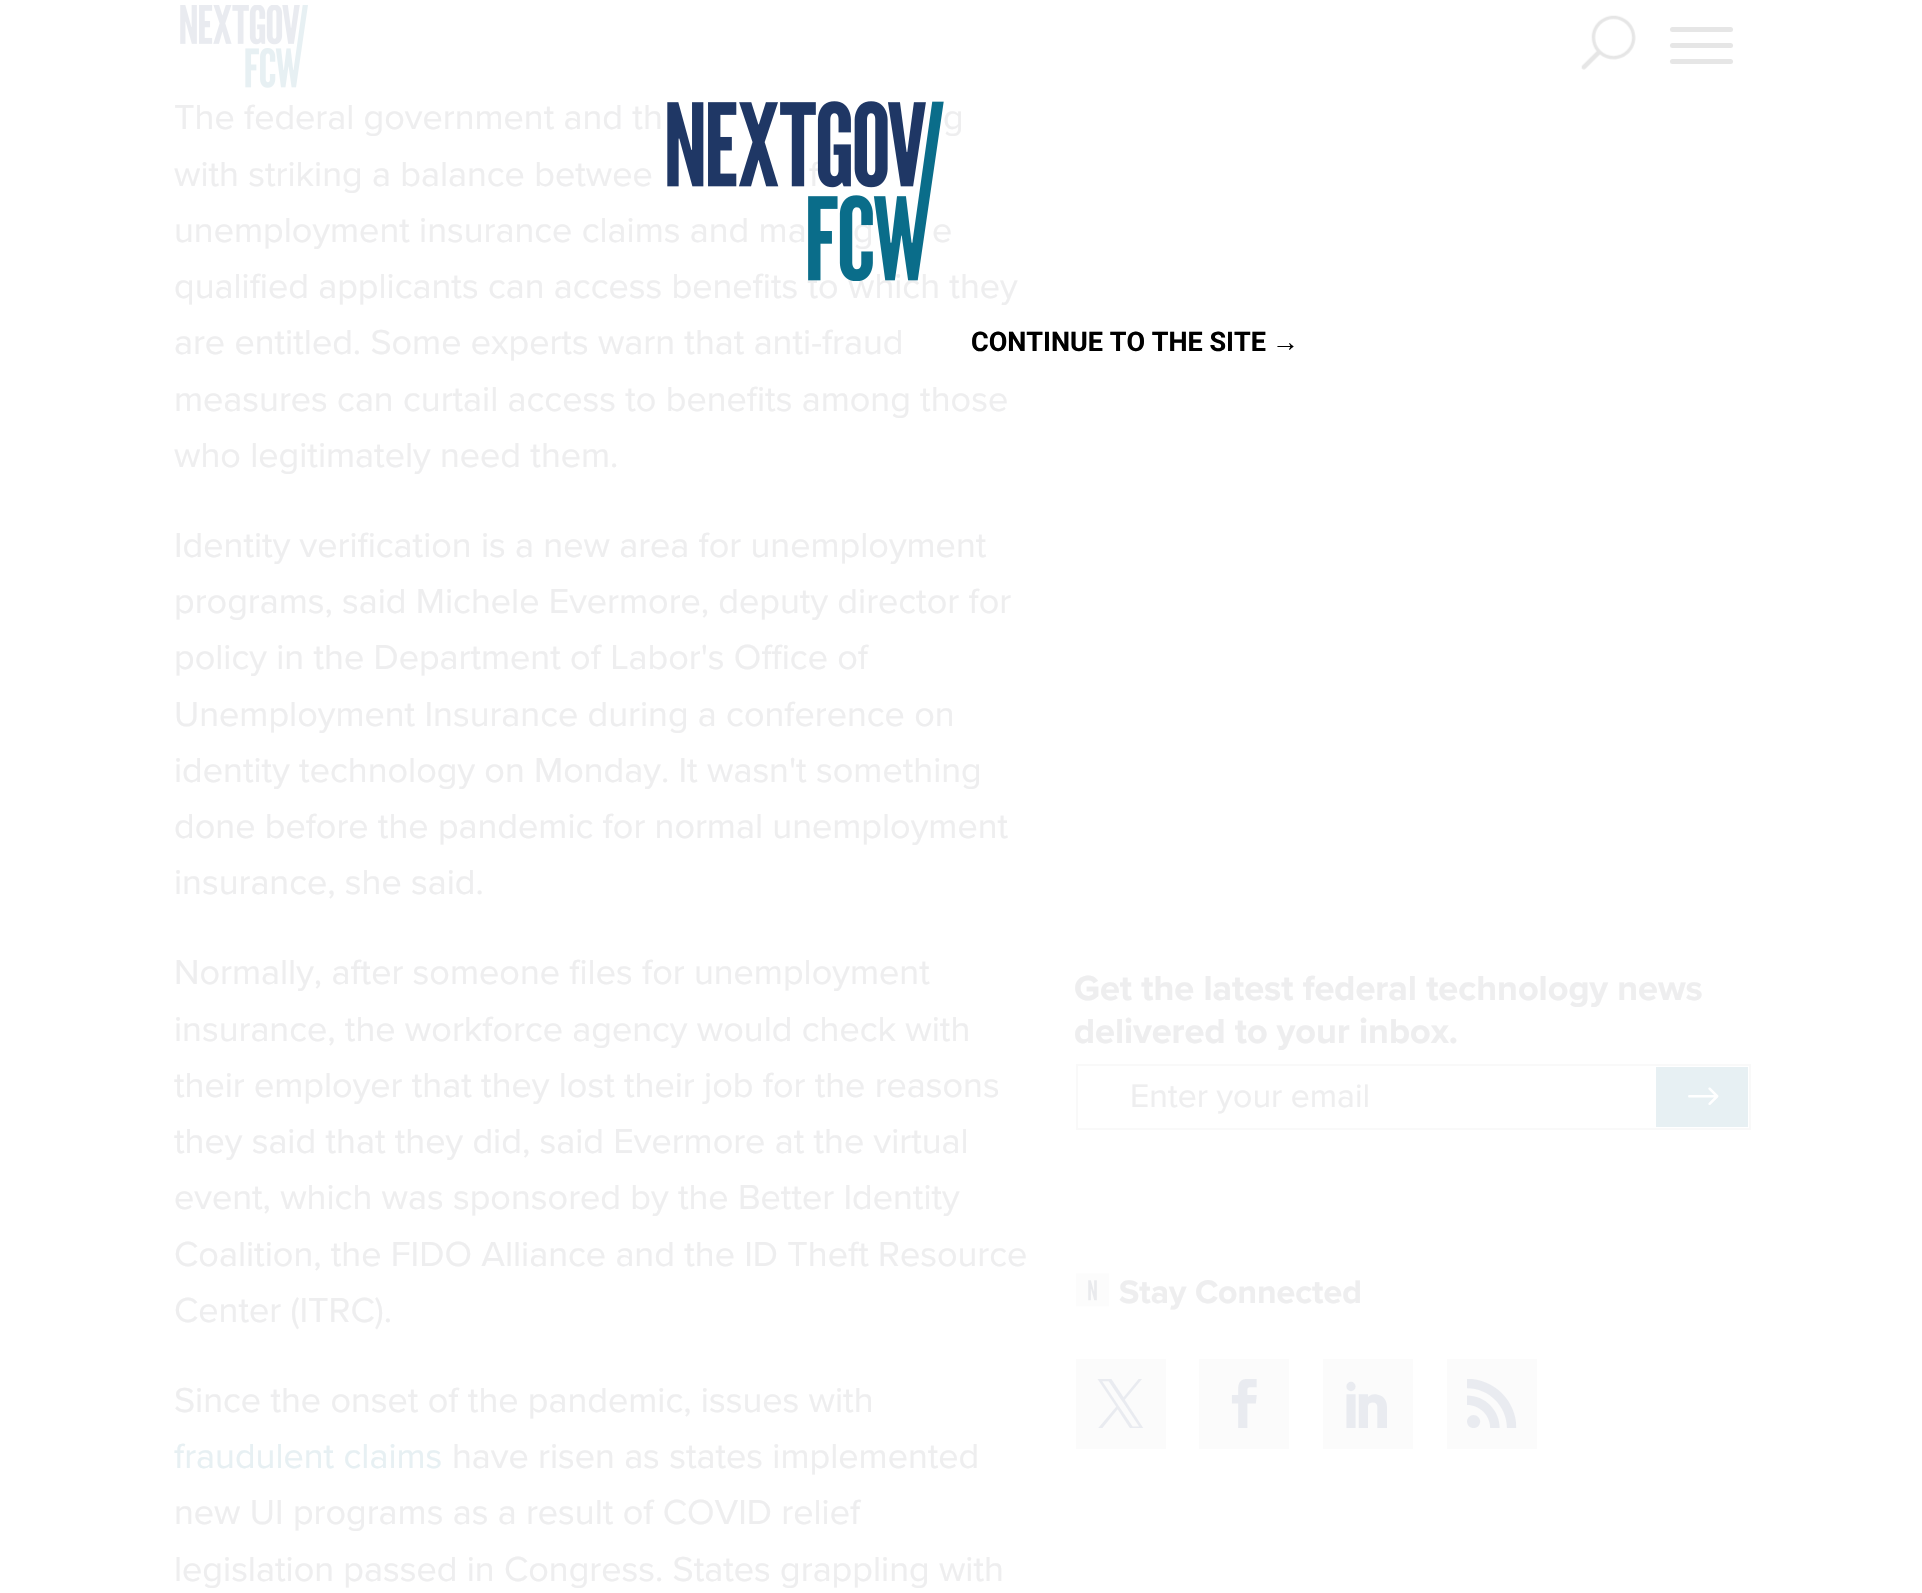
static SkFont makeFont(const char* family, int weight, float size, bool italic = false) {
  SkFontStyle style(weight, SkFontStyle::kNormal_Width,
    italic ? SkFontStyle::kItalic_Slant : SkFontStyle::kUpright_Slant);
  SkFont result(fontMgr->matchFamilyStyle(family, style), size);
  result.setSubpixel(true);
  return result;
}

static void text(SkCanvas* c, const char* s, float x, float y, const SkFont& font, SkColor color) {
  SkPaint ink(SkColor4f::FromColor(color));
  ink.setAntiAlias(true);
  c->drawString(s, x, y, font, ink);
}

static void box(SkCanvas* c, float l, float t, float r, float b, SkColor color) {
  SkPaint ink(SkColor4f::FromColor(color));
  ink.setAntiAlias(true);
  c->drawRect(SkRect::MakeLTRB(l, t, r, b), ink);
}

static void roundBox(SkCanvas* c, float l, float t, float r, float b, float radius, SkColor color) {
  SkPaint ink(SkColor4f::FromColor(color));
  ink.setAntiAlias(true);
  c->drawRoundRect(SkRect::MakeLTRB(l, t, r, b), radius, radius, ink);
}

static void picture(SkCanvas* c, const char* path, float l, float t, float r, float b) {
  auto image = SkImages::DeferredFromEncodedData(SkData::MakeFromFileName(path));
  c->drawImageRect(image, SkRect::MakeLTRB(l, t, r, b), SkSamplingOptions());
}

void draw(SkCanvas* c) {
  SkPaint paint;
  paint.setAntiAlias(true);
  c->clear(0xffffffff);
  picture(c, "img_01.png", 180, 5, 308, 88);
  picture(c, "img_02.png", 1581, 15, 1636, 70);
  roundBox(c, 1670, 43, 1733, 48, 2.5f, 0xffe6e6e6);
  roundBox(c, 1670, 27, 1733, 32, 2.5f, 0xffe6e6e6);
  roundBox(c, 1670, 59, 1733, 64, 2.5f, 0xffe6e6e6);
  SkFont face1 = makeFont("Proxima Nova", 400, 36);
  text(c, "The federal government and th", 174, 129, face1, 0xffeeeeef);
  text(c, "g", 943, 129, face1, 0xffeeeeef);
  text(c, "with striking a balance betwee", 174, 186, face1, 0xffeeeeef);
  text(c, "f", 809, 186, face1, 0xffeeeeef);
  text(c, "unemployment insurance claims and ma", 174, 242, face1, 0xffeeeeef);
  text(c, "g", 853, 242, face1, 0xffeeeeef);
  text(c, "e", 932, 242, face1, 0xffeeeeef);
  text(c, "qualified applicants can access benefits to which they", 174, 298, face1, 0xffeeeeef);
  text(c, "are entitled. Some experts warn that anti-fraud", 174, 354, face1, 0xffeeeeef);
  text(c, "measures can curtail access to benefits among those", 174, 411, face1, 0xffeeeeef);
  text(c, "who legitimately need them.", 174, 467, face1, 0xffeeeeef);
  text(c, "Identity verification is a new area for unemployment", 174, 557, face1, 0xffeeeeef);
  text(c, "programs, said Michele Evermore, deputy director for", 174, 613, face1, 0xffeeeeef);
  text(c, "policy in the Department of Labor's Office of", 174, 669, face1, 0xffeeeeef);
  text(c, "Unemployment Insurance during a conference on", 174, 726, face1, 0xffeeeeef);
  text(c, "identity technology on Monday. It wasn't something", 174, 782, face1, 0xffeeeeef);
  text(c, "done before the pandemic for normal unemployment", 174, 838, face1, 0xffeeeeef);
  text(c, "insurance, she said.", 174, 894, face1, 0xffeeeeef);
  text(c, "Normally, after someone files for unemployment", 174, 984, face1, 0xffeeeeef);
  text(c, "insurance, the workforce agency would check with", 174, 1041, face1, 0xffeeeeef);
  text(c, "their employer that they lost their job for the reasons", 174, 1097, face1, 0xffeeeeef);
  text(c, "they said that they did, said Evermore at the virtual", 174, 1153, face1, 0xffeeeeef);
  text(c, "event, which was sponsored by the Better Identity", 174, 1209, face1, 0xffeeeeef);
  text(c, "Coalition, the FIDO Alliance and the ID Theft Resource", 174, 1266, face1, 0xffeeeeef);
  text(c, "Center (ITRC).", 174, 1322, face1, 0xffeeeeef);
  text(c, "Since the onset of the pandemic, issues with", 174, 1412, face1, 0xffeeeeef);
  text(c, "fraudulent claims", 174, 1468, face1, 0xffe7f0f3);
  text(c, "have risen as states implemented", 452, 1468, face1, 0xffeeeeef);
  text(c, "new UI programs as a result of COVID relief", 174, 1524, face1, 0xffeeeeef);
  text(c, "legislation passed in Congress. States grappling with", 174, 1581, face1, 0xffeeeeef);
  SkFont face2 = makeFont("Proxima Nova", 700, 36);
  text(c, "Get the latest federal technology news", 1074, 1000, face2, 0xffeeeeef);
  text(c, "delivered to your inbox.", 1074, 1043, face2, 0xffeeeeef);
  paint.setStyle(SkPaint::kStroke_Style);
  paint.setStrokeWidth(2);
  paint.setColor(0xfff9f9f9);
  c->drawRect(SkRect::MakeLTRB(1077, 1065, 1750, 1129), paint);
  SkFont face3 = makeFont("Proxima Nova", 400, 33.75f);
  text(c, "Enter your email", 1130, 1107, face3, 0xffeeeeef);
  box(c, 1656, 1067, 1748, 1127, 0xffe7f0f3);
  picture(c, "img_03.png", 1688, 1087, 1719, 1105);
  picture(c, "img_04.png", 1076, 1273, 1109, 1307);
  SkFont face4 = makeFont("Proxima Nova", 700, 33.75f);
  text(c, "Stay Connected", 1119, 1303, face4, 0xffeeeeef);
  box(c, 1076, 1359, 1166, 1449, 0xfffbfbfb);
  picture(c, "img_05.png", 1097, 1379, 1144, 1428);
  box(c, 1199, 1359, 1289, 1449, 0xfffbfbfb);
  picture(c, "img_06.png", 1231, 1379, 1257, 1428);
  box(c, 1323, 1359, 1413, 1449, 0xfffbfbfb);
  picture(c, "img_07.png", 1346, 1381, 1387, 1428);
  box(c, 1447, 1359, 1537, 1449, 0xfffbfbfb);
  picture(c, "img_08.png", 1467, 1379, 1517, 1428);
  picture(c, "img_09.png", 667, 101, 944, 281);
  SkFont face5 = makeFont("Roboto", 700, 27);
  text(c, "CONTINUE TO THE SITE", 971, 351, face5, 0xff000000);
  SkFont face6 = makeFont("Liberation Sans", 700, 27);
  text(c, "→", 1272, 351, face6, 0xff000000);
}
